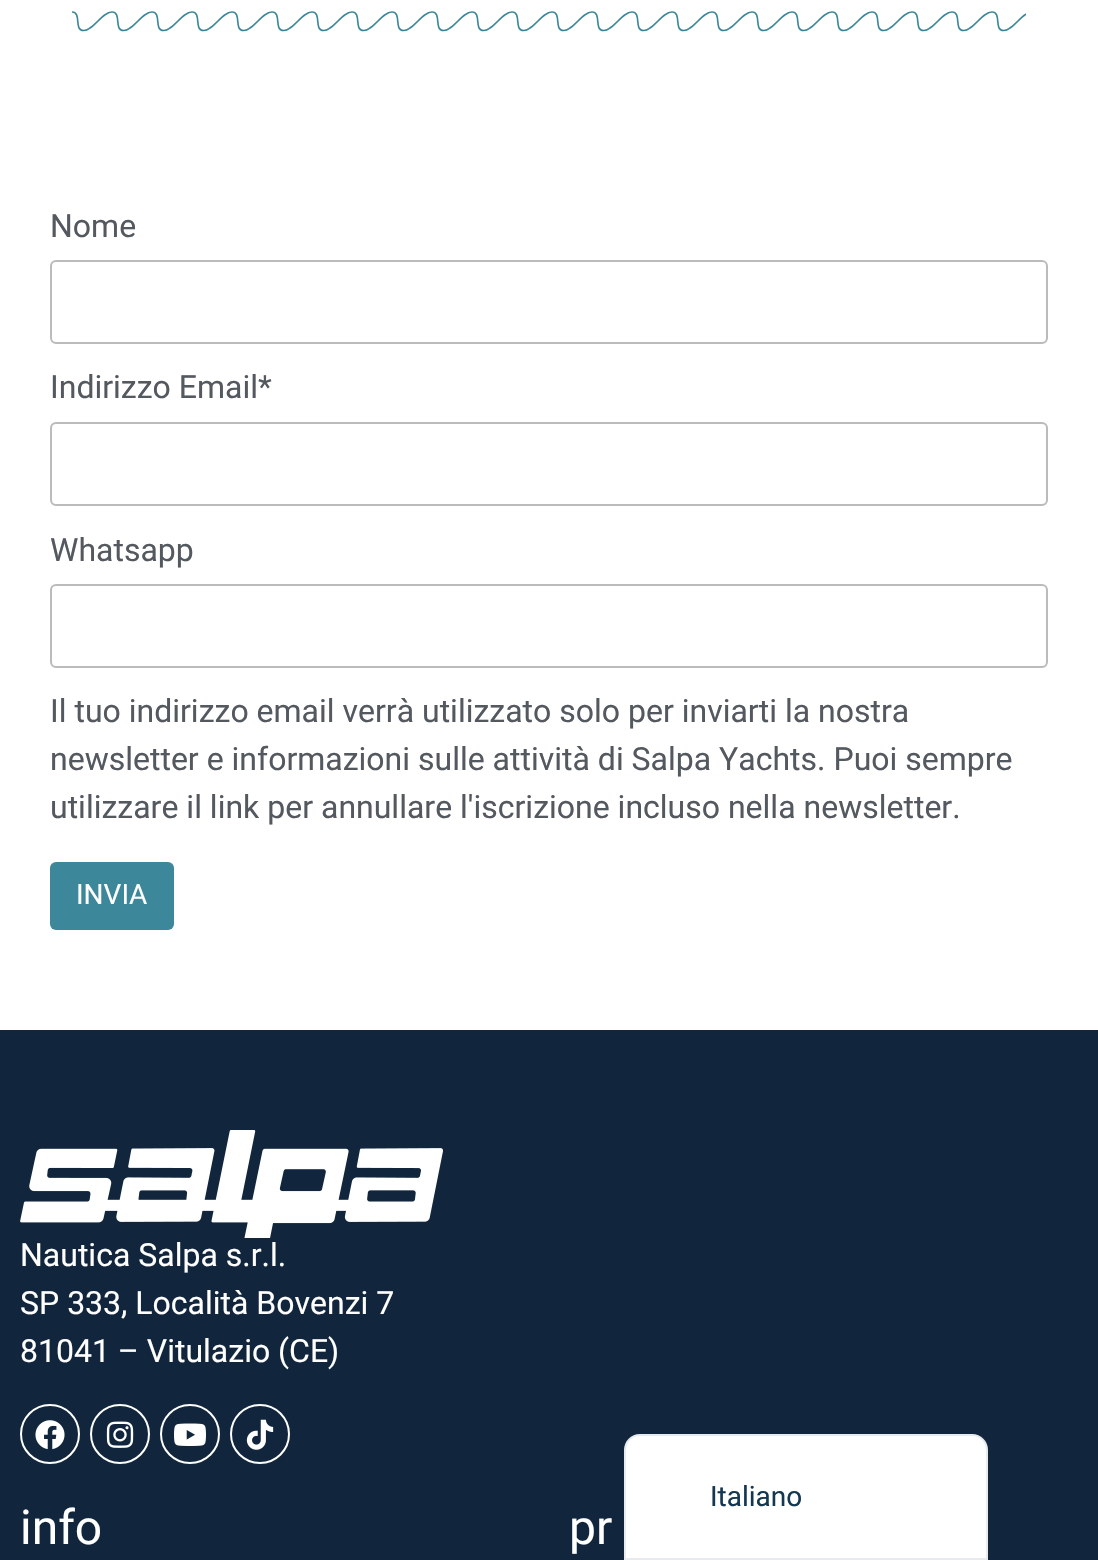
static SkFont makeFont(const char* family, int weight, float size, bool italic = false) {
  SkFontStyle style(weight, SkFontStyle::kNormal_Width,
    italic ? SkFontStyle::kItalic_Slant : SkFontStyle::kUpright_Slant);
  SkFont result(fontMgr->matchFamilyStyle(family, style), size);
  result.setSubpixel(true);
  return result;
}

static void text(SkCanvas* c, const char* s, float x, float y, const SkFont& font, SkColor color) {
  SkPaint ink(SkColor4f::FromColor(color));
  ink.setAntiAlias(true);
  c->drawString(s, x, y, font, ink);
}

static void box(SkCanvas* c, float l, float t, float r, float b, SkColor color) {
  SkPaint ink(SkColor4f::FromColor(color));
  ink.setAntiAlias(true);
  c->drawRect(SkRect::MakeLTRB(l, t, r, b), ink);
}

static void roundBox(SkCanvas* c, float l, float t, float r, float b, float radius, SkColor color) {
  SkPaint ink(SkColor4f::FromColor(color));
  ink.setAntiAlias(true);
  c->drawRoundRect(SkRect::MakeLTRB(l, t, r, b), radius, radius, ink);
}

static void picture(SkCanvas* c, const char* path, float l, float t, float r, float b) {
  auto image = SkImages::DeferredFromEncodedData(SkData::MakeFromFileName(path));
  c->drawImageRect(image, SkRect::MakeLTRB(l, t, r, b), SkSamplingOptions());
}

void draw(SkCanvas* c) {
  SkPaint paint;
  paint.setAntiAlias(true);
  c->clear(0xffffffff);
  picture(c, "img_01.png", 72, 11, 1026, 32);
  SkFont face1 = makeFont("Roboto", 400, 32);
  text(c, "Nome", 50, 237, face1, 0xff54595f);
  paint.setStyle(SkPaint::kStroke_Style);
  paint.setStrokeWidth(2);
  paint.setColor(0xffbbbbbb);
  c->drawRoundRect(SkRect::MakeLTRB(51, 261, 1047, 343), 5, 5, paint);
  text(c, "Indirizzo Email*", 50, 398, face1, 0xff54595f);
  c->drawRoundRect(SkRect::MakeLTRB(51, 423, 1047, 505), 5, 5, paint);
  text(c, "Whatsapp", 50, 561, face1, 0xff54595f);
  c->drawRoundRect(SkRect::MakeLTRB(51, 585, 1047, 667), 5, 5, paint);
  text(c, "Il tuo indirizzo email verrà utilizzato solo per inviarti la nostra", 50, 722, face1, 0xff54595f);
  text(c, "newsletter e informazioni sulle attività di Salpa Yachts. Puoi sempre", 50, 770, face1, 0xff54595f);
  text(c, "utilizzare il link per annullare l'iscrizione incluso nella newsletter.", 50, 818, face1, 0xff54595f);
  roundBox(c, 50, 862, 174, 930, 6, 0xff3d879a);
  SkFont face2 = makeFont("Roboto", 400, 28);
  text(c, "INVIA", 76, 904, face2, 0xffffffff);
  box(c, 0, 1030, 1098, 1560, 0xff11263d);
  picture(c, "img_02.png", 20, 1130, 443, 1238);
  text(c, "Nautica Salpa s.r.l.", 20, 1266, face1, 0xffffffff);
  text(c, "SP 333, Località Bovenzi 7", 20, 1314, face1, 0xffffffff);
  text(c, "81041 – Vitulazio (CE)", 20, 1362, face1, 0xffffffff);
  paint.setColor(0xffffffff);
  c->drawCircle(50, 1434, 29, paint);
  picture(c, "img_03.png", 35, 1420, 65, 1450);
  c->drawCircle(120, 1434, 29, paint);
  picture(c, "img_04.png", 106, 1421, 134, 1448);
  c->drawCircle(190, 1434, 29, paint);
  picture(c, "img_05.png", 174, 1423, 206, 1446);
  c->drawCircle(260, 1434, 29, paint);
  picture(c, "img_06.png", 246, 1419, 274, 1450);
  SkFont face3 = makeFont("Roboto", 400, 48);
  text(c, "info", 20, 1544, face3, 0xffffffff);
  text(c, "pr", 569, 1544, face3, 0xffffffff);
  paint.setStyle(SkPaint::kFill_Style);
  c->drawPath(SkPathBuilder().moveTo(640, 1434).lineTo(972, 1434).cubicTo(981, 1434, 988, 1441, 988, 1450).lineTo(988, 1560).lineTo(624, 1560).lineTo(624, 1450).cubicTo(624, 1441, 631, 1434, 640, 1434).close().detach(), paint);
  paint.setStyle(SkPaint::kStroke_Style);
  paint.setColor(0x1a143852);
  c->drawPath(SkPathBuilder().moveTo(640, 1435).lineTo(972, 1435).cubicTo(980.5f, 1435, 987, 1441.5f, 987, 1450).lineTo(987, 1559).lineTo(625, 1559).lineTo(625, 1450).cubicTo(625, 1441.5f, 631.5f, 1435, 640, 1435).close().detach(), paint);
  text(c, "Italiano", 710, 1506, face2, 0xff143852);
}
